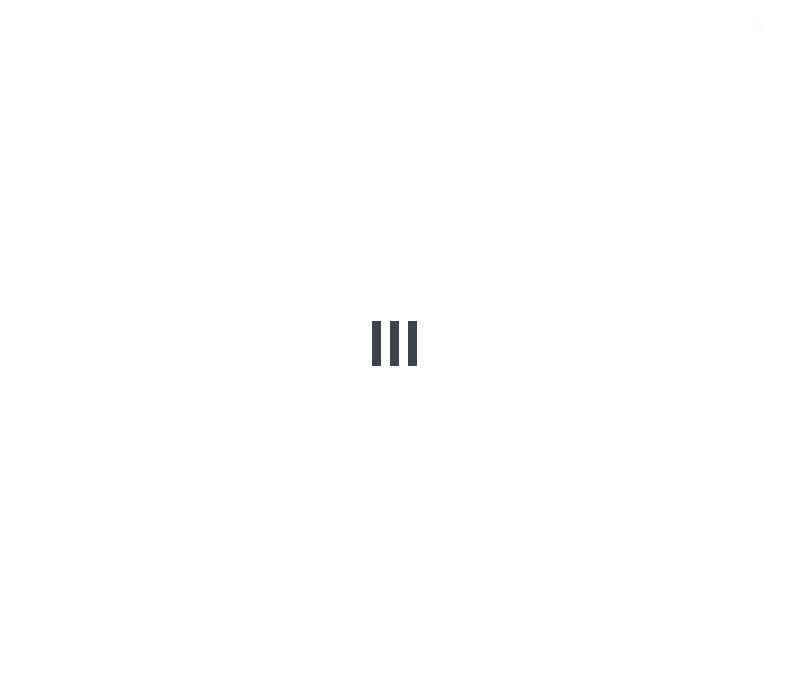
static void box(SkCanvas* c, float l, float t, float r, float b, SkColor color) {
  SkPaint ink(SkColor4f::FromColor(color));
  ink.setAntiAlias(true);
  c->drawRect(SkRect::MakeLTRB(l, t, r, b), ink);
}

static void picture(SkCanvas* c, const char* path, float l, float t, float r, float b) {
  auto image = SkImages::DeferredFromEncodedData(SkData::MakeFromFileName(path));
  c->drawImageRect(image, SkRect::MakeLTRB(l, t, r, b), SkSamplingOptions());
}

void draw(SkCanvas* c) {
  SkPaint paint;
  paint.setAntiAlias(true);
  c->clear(0xffffffff);
  picture(c, "img_01.png", 751, 19, 766, 34);
  box(c, 408, 321, 417, 366, 0xff3e424a);
  box(c, 390, 321, 399, 366, 0xff3e424a);
  box(c, 372, 321, 381, 366, 0xff3e424a);
}
